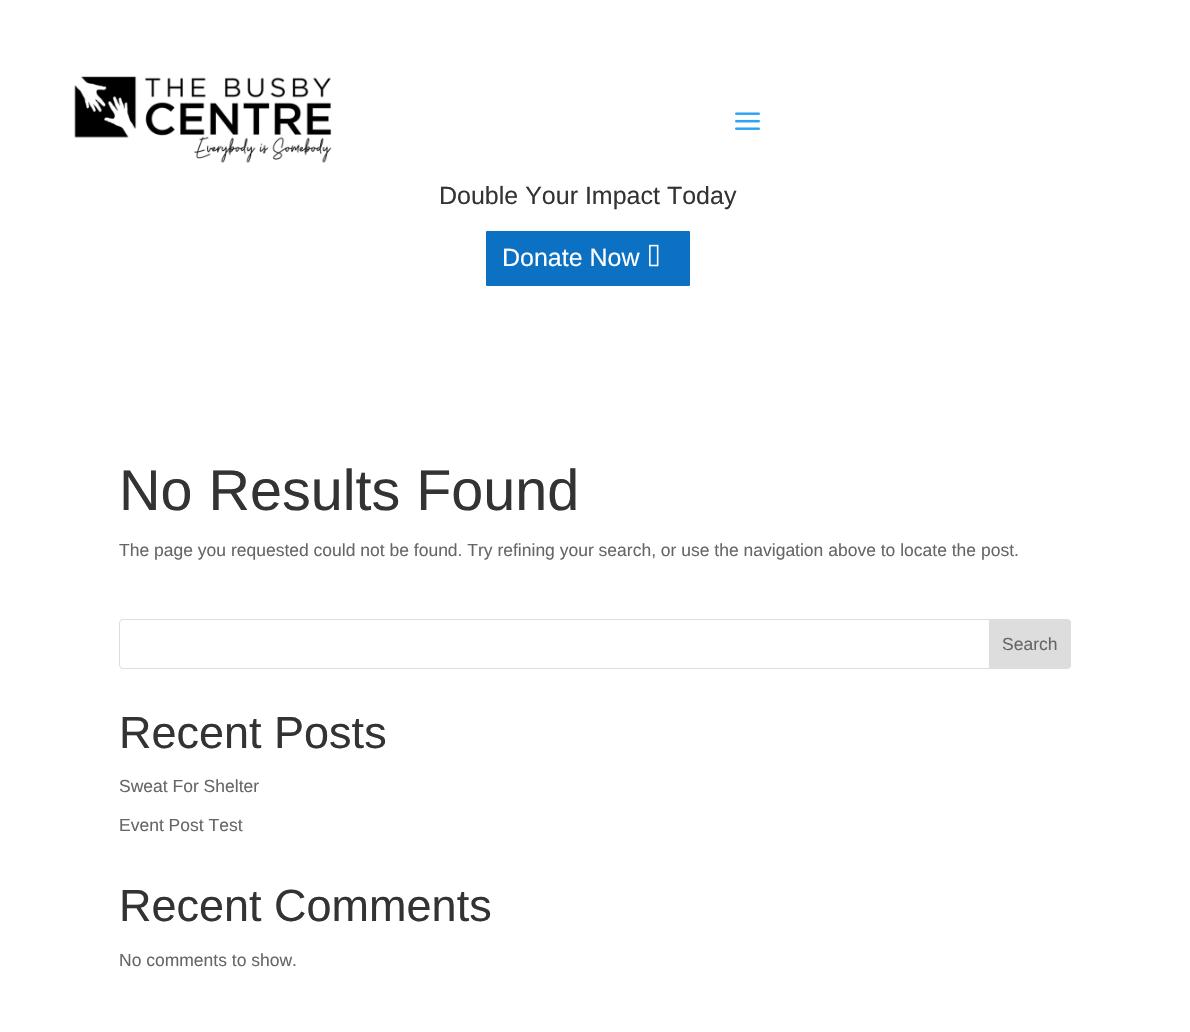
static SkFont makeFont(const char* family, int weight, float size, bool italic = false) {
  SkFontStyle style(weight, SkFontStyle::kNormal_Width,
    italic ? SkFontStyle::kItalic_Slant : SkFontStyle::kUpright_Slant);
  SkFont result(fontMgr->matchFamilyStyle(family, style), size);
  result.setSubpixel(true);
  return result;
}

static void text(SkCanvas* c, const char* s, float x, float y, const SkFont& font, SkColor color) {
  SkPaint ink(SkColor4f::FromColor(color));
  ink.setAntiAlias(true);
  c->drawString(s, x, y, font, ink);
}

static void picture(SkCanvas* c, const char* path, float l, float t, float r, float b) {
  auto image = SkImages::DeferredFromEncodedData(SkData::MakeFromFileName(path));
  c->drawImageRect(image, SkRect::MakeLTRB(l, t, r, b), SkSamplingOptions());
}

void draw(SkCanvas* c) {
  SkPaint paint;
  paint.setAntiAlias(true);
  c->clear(0xffffffff);
  picture(c, "img_01.png", 74, 76, 332, 163);
  picture(c, "img_02.png", 735, 112, 760, 130);
  SkFont face1 = makeFont("Liberation Sans", 400, 25);
  text(c, "Double Your Impact Today", 439, 204, face1, 0xff333333);
  paint.setColor(0xff0c71c3);
  c->drawRoundRect(SkRect::MakeLTRB(484.5f, 229.5f, 691.5f, 287.5f), 2.5f, 2.5f, paint);
  paint.setStyle(SkPaint::kStroke_Style);
  paint.setStrokeWidth(3);
  paint.setColor(0xffffffff);
  c->drawRoundRect(SkRect::MakeLTRB(484.5f, 229.5f, 691.5f, 287.5f), 2.5f, 2.5f, paint);
  text(c, "Donate Now", 502, 266, face1, 0xffffffff);
  picture(c, "img_03.png", 649, 244, 659, 267);
  SkFont face2 = makeFont("Liberation Sans", 400, 57.5f);
  text(c, "No Results Found", 119, 510, face2, 0xff333333);
  SkFont face3 = makeFont("Liberation Sans", 400, 17.5f);
  text(c, "The page you requested could not be found. Try refining your search, or use the navigation above to locate the post.", 119, 556, face3, 0xff666666);
  paint.setStrokeWidth(1);
  paint.setColor(0xffdddddd);
  c->drawRoundRect(SkRect::MakeLTRB(119.5f, 619.5f, 1070.5f, 668.5f), 3.5f, 3.5f, paint);
  paint.setStyle(SkPaint::kFill_Style);
  c->drawPath(SkPathBuilder().moveTo(989.5f, 619.5f).lineTo(1067, 619.5f).cubicTo(1069, 619.5f, 1070.5f, 621, 1070.5f, 623).lineTo(1070.5f, 665).cubicTo(1070.5f, 667, 1069, 668.5f, 1067, 668.5f).lineTo(989.5f, 668.5f).close().detach(), paint);
  paint.setStyle(SkPaint::kStroke_Style);
  c->drawPath(SkPathBuilder().moveTo(989.5f, 619.5f).lineTo(1067, 619.5f).cubicTo(1069, 619.5f, 1070.5f, 621, 1070.5f, 623).lineTo(1070.5f, 665).cubicTo(1070.5f, 667, 1069, 668.5f, 1067, 668.5f).lineTo(989.5f, 668.5f).close().detach(), paint);
  text(c, "Search", 1002, 650, face3, 0xff666666);
  SkFont face4 = makeFont("Liberation Sans", 400, 45);
  text(c, "Recent Posts", 119, 748, face4, 0xff333333);
  text(c, "Sweat For Shelter", 119, 792, face3, 0xff666666);
  text(c, "Event Post Test", 119, 831, face3, 0xff666666);
  text(c, "Recent Comments", 119, 921, face4, 0xff333333);
  text(c, "No comments to show.", 119, 966, face3, 0xff666666);
}
